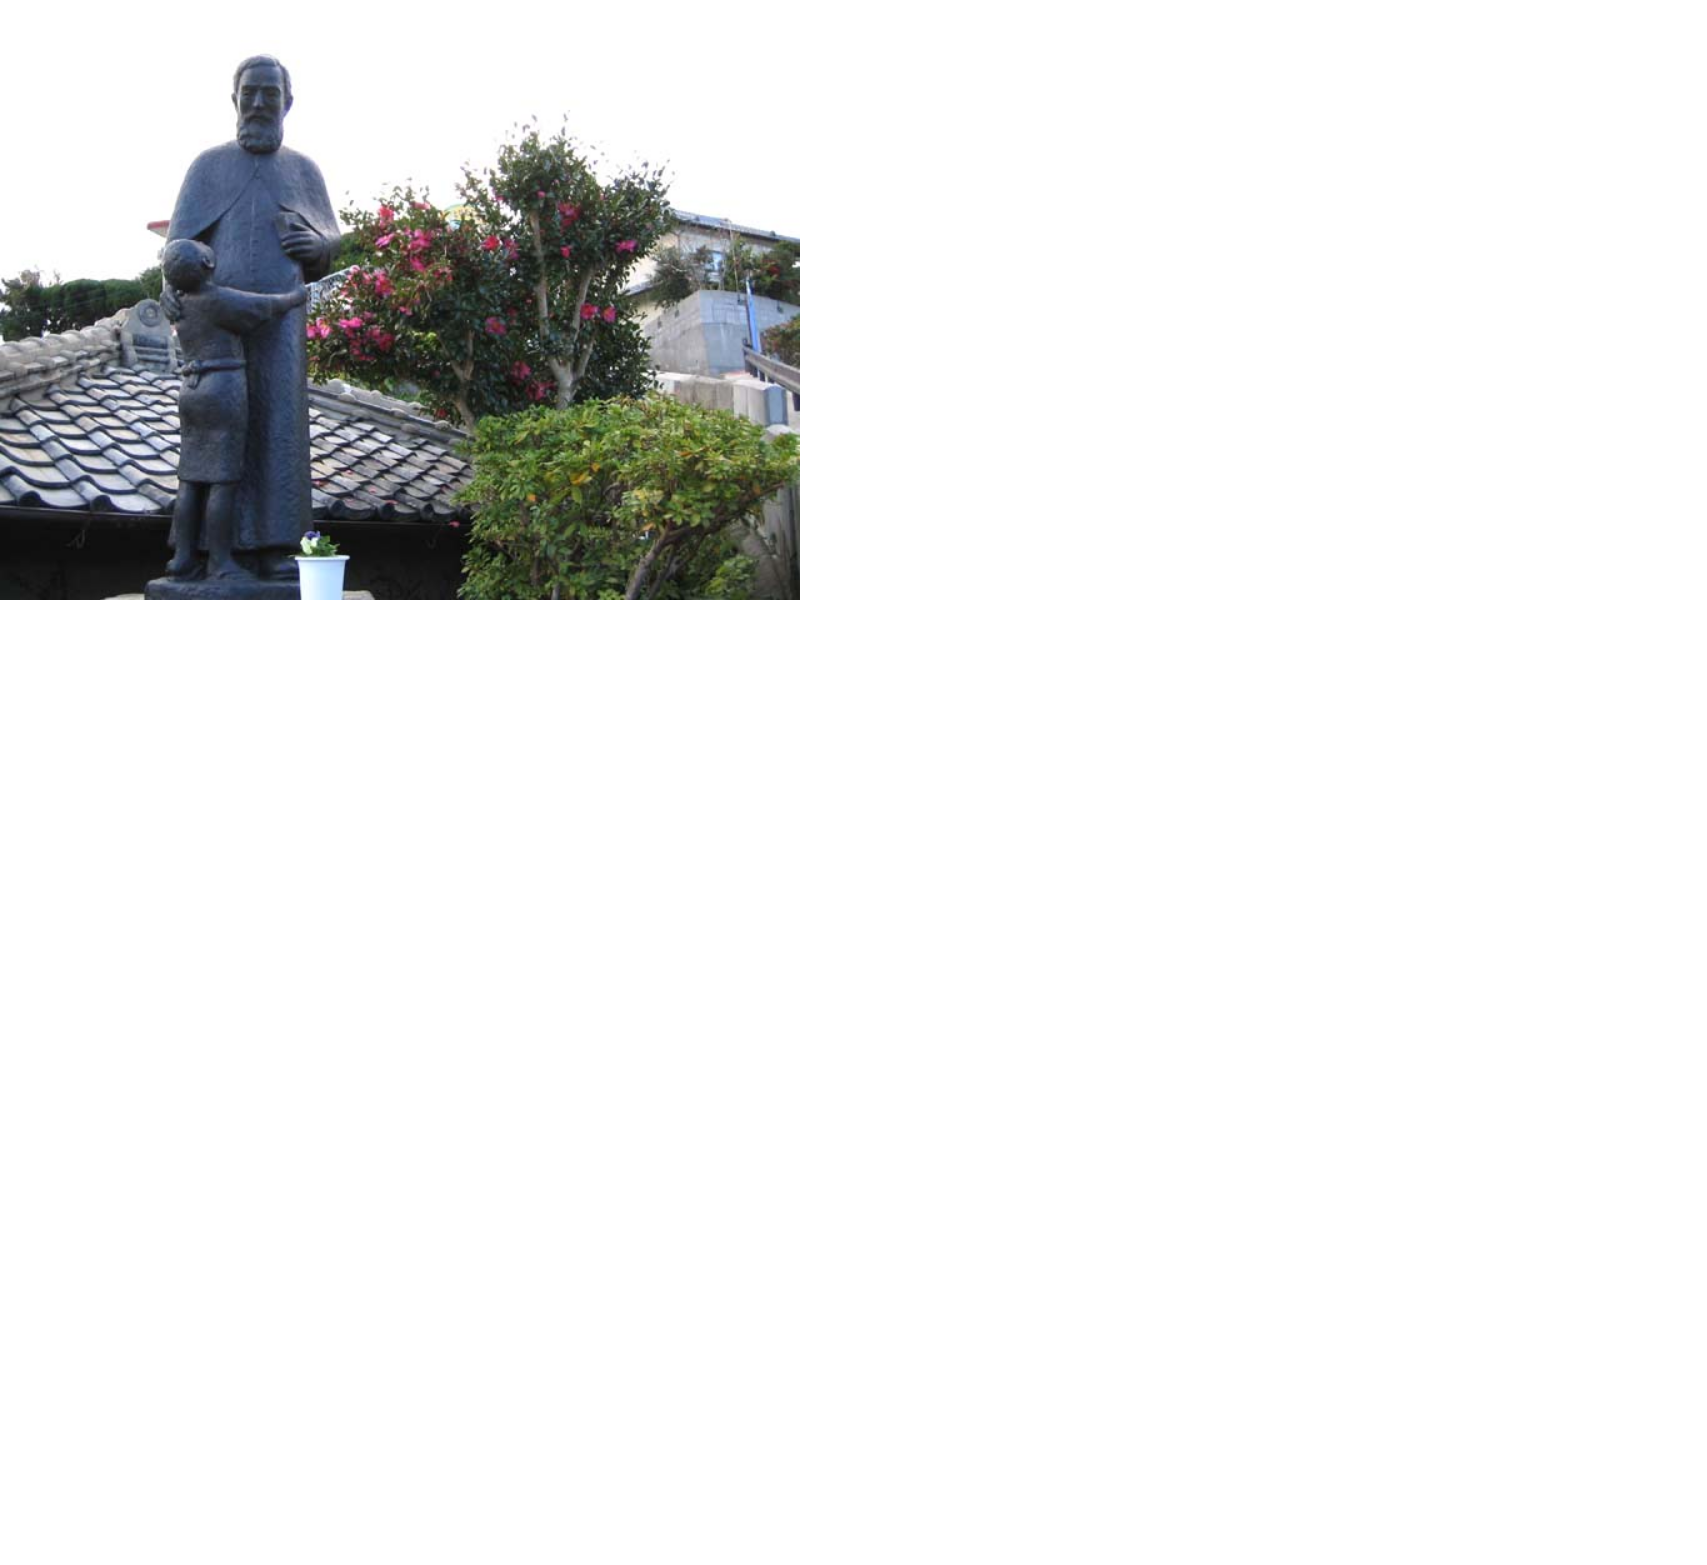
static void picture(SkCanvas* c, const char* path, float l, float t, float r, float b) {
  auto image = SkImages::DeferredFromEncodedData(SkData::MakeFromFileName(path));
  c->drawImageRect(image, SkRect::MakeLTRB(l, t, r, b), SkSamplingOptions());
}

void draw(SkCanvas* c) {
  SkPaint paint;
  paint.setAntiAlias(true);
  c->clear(0xffffffff);
  picture(c, "img_01.png", 0, 40, 800, 600);
}
